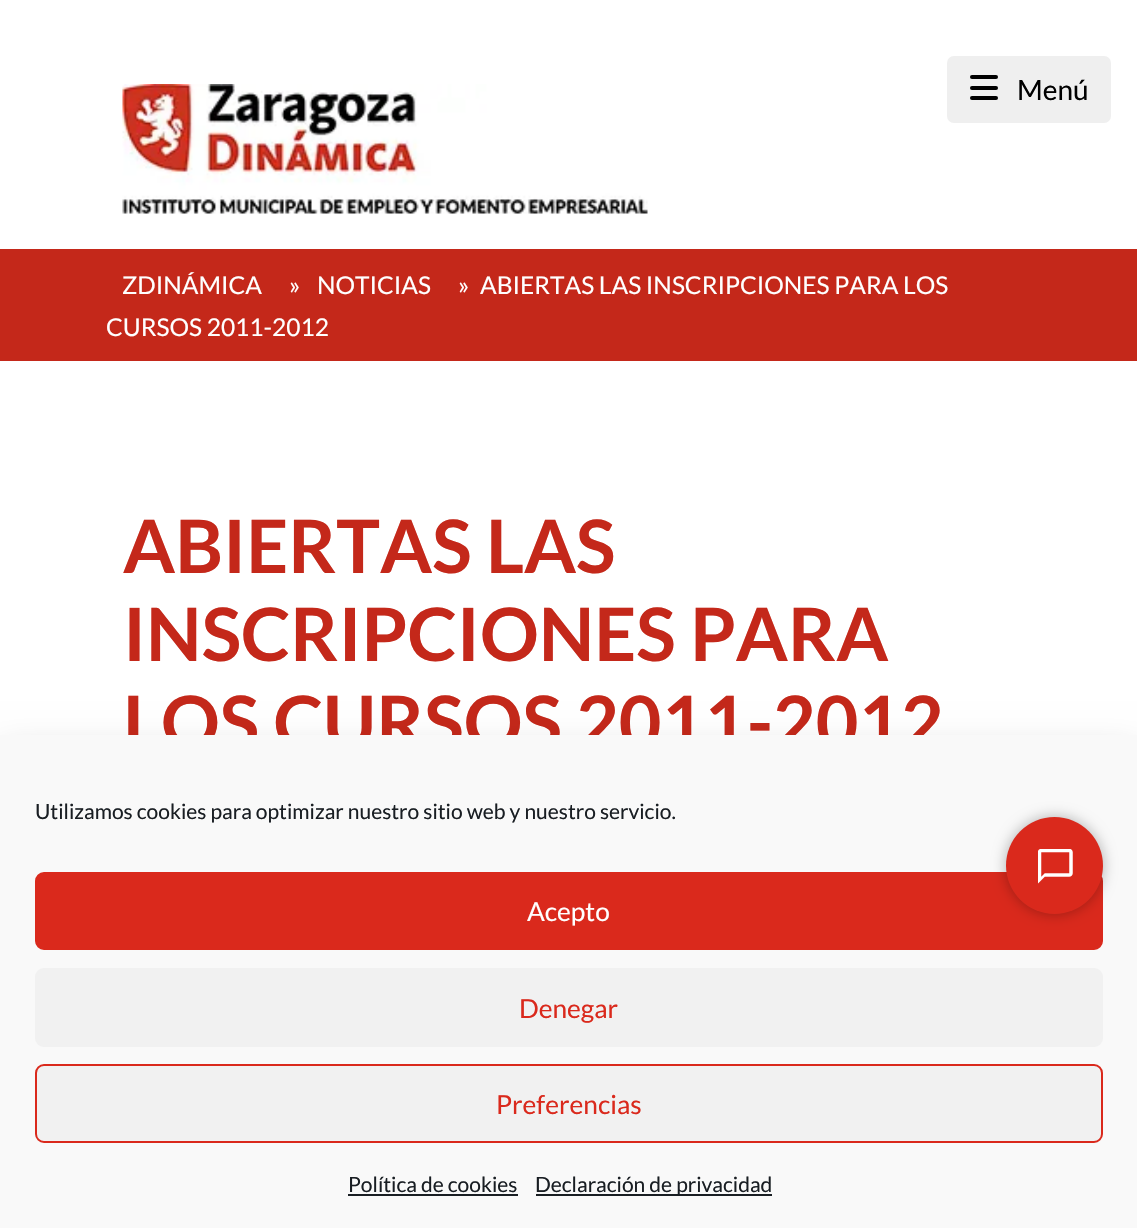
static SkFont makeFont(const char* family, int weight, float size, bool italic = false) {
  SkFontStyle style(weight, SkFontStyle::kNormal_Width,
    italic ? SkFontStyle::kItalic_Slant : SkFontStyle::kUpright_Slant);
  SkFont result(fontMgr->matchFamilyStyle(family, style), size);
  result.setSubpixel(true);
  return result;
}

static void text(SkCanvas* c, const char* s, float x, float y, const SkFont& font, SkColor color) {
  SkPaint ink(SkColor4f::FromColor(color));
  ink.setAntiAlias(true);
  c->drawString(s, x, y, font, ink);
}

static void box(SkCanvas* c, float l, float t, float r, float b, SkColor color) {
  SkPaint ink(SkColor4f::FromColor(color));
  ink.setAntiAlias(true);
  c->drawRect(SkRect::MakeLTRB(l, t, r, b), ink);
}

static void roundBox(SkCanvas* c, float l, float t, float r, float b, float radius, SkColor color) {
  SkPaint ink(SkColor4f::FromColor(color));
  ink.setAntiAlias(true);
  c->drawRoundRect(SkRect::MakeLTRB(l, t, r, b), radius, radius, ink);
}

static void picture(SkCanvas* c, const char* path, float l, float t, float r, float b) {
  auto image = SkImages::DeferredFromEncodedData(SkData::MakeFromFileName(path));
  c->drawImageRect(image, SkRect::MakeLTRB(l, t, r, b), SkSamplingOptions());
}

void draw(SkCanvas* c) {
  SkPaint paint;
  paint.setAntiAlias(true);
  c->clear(0xffffffff);
  picture(c, "img_01.png", 122, 84, 648, 214);
  roundBox(c, 947, 56, 1111, 123, 7, 0xffefefef);
  roundBox(c, 970, 86, 998, 90, 2, 0xff000000);
  roundBox(c, 970, 75, 998, 79, 2, 0xff000000);
  roundBox(c, 970, 96, 998, 100, 2, 0xff000000);
  SkFont face1 = makeFont("Lato", 400, 28);
  text(c, "Menú", 1017, 100, face1, 0xff000000);
  box(c, 0, 249, 1137, 361, 0xffc4281a);
  SkFont face2 = makeFont("Lato", 400, 24.5f);
  text(c, "ZDINÁMICA", 122, 294, face2, 0xffffffff);
  text(c, "»", 289, 294, face2, 0xffffffff);
  text(c, "NOTICIAS", 317, 294, face2, 0xffffffff);
  text(c, "»", 458, 294, face2, 0xffffffff);
  text(c, "ABIERTAS LAS INSCRIPCIONES PARA LOS", 480, 294, face2, 0xffffffff);
  text(c, "CURSOS 2011-2012", 106, 336, face2, 0xffffffff);
  SkFont face3 = makeFont("Lato", 700, 73.5f);
  text(c, "ABIERTAS LAS", 123, 573, face3, 0xffc4281a);
  text(c, "INSCRIPCIONES PARA", 123, 661, face3, 0xffc4281a);
  text(c, "LOS CURSOS 2011-2012", 123, 749, face3, 0xffc4281a);
  paint.setColor(0x30000000);
  paint.setMaskFilter(SkMaskFilter::MakeBlur(kNormal_SkBlurStyle, 17.5f));
  c->drawRect(SkRect::MakeLTRB(0, 753, 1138, 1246), paint);
  paint.setMaskFilter(nullptr);
  box(c, 0, 735, 1137, 1228, 0xfff9f9f9);
  SkFont face4 = makeFont("Lato", 400, 21);
  text(c, "Utilizamos cookies para optimizar nuestro sitio web y nuestro servicio.", 35, 819, face4, 0xff191e23);
  paint.setColor(0xffda291c);
  c->drawRoundRect(SkRect::MakeLTRB(36, 873, 1102, 949), 8, 8, paint);
  paint.setStyle(SkPaint::kStroke_Style);
  paint.setStrokeWidth(2);
  c->drawRoundRect(SkRect::MakeLTRB(36, 873, 1102, 949), 8, 8, paint);
  SkFont face5 = makeFont("Lato", 400, 26.25f);
  text(c, "Acepto", 527, 921, face5, 0xffffffff);
  roundBox(c, 35, 968, 1103, 1047, 9, 0xfff1f1f1);
  text(c, "Denegar", 519, 1018, face5, 0xffda291c);
  paint.setStyle(SkPaint::kFill_Style);
  paint.setColor(0xfff1f1f1);
  c->drawRoundRect(SkRect::MakeLTRB(36, 1065, 1102, 1142), 8, 8, paint);
  paint.setStyle(SkPaint::kStroke_Style);
  paint.setColor(0xffda291c);
  c->drawRoundRect(SkRect::MakeLTRB(36, 1065, 1102, 1142), 8, 8, paint);
  text(c, "Preferencias", 496, 1114, face5, 0xffda291c);
  text(c, "Política de cookies", 348, 1192, face4, 0xff191e23);
  box(c, 348, 1194, 518, 1196, 0xff191e23);
  box(c, 536, 1194, 772, 1196, 0xff191e23);
  text(c, "Declaración de privacidad", 535, 1192, face4, 0xff191e23);
  paint.setStyle(SkPaint::kFill_Style);
  paint.setColor(0x4d000000);
  paint.setMaskFilter(SkMaskFilter::MakeBlur(kNormal_SkBlurStyle, 7));
  c->drawRoundRect(SkRect::MakeLTRB(1006, 817, 1103, 914), 48.5f, 48.5f, paint);
  paint.setMaskFilter(nullptr);
  paint.setColor(0xffda291c);
  c->drawCircle(1054.5f, 865.5f, 48.5f, paint);
  picture(c, "img_02.png", 1038, 849, 1073, 884);
}
